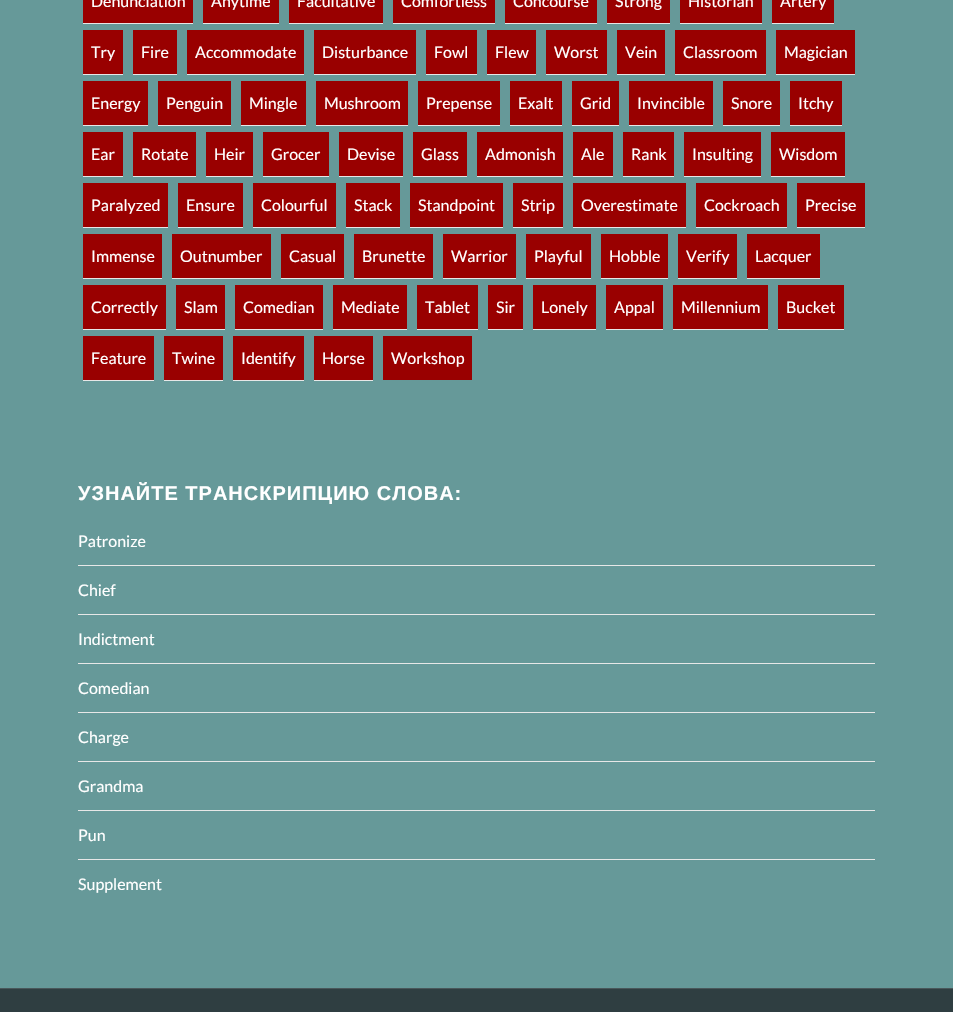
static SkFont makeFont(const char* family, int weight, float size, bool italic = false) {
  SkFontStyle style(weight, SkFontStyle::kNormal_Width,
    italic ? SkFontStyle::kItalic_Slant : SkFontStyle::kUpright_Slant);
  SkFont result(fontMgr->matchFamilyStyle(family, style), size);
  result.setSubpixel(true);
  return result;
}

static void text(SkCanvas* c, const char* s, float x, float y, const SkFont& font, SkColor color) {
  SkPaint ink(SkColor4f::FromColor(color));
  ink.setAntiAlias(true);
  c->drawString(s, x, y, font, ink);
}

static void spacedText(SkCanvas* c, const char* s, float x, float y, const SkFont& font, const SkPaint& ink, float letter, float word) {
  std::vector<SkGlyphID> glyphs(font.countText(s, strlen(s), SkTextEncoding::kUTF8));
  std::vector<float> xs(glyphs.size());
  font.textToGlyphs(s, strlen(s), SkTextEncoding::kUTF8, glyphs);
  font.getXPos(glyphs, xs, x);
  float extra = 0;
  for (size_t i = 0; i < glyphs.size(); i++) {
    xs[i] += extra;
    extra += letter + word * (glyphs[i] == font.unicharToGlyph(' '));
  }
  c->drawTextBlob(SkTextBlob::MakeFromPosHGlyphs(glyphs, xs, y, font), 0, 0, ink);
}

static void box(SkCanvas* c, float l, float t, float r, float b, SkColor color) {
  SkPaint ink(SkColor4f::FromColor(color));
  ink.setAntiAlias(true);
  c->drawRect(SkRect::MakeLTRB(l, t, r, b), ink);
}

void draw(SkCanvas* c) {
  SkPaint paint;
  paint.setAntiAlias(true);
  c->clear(0xff669999);
  box(c, 83, 0, 193, 23, 0xff990000);
  box(c, 83, 23, 193, 24, 0xffe7e7e7);
  SkFont face1 = makeFont("Lato", 400, 16);
  text(c, "Denunciation", 91, 7, face1, 0xffffffff);
  box(c, 203, 0, 279, 23, 0xff990000);
  box(c, 203, 23, 279, 24, 0xffe7e7e7);
  text(c, "Anytime", 211, 7, face1, 0xffffffff);
  box(c, 289, 0, 383, 23, 0xff990000);
  box(c, 289, 23, 383, 24, 0xffe7e7e7);
  text(c, "Facultative", 297, 7, face1, 0xffffffff);
  box(c, 393, 0, 495, 23, 0xff990000);
  box(c, 393, 23, 495, 24, 0xffe7e7e7);
  text(c, "Comfortless", 401, 7, face1, 0xffffffff);
  box(c, 505, 0, 597, 23, 0xff990000);
  box(c, 505, 23, 597, 24, 0xffe7e7e7);
  text(c, "Concourse", 513, 7, face1, 0xffffffff);
  box(c, 607, 0, 670, 23, 0xff990000);
  box(c, 607, 23, 670, 24, 0xffe7e7e7);
  text(c, "Strong", 615, 7, face1, 0xffffffff);
  box(c, 680, 0, 762, 23, 0xff990000);
  box(c, 680, 23, 762, 24, 0xffe7e7e7);
  text(c, "Historian", 688, 7, face1, 0xffffffff);
  box(c, 772, 0, 834, 23, 0xff990000);
  box(c, 772, 23, 834, 24, 0xffe7e7e7);
  text(c, "Artery", 780, 7, face1, 0xffffffff);
  box(c, 83, 30, 123, 74, 0xff990000);
  box(c, 83, 74, 123, 75, 0xffe7e7e7);
  text(c, "Try", 91, 58, face1, 0xffffffff);
  box(c, 133, 30, 177, 74, 0xff990000);
  box(c, 133, 74, 177, 75, 0xffe7e7e7);
  text(c, "Fire", 141, 58, face1, 0xffffffff);
  box(c, 187, 30, 304, 74, 0xff990000);
  box(c, 187, 74, 304, 75, 0xffe7e7e7);
  text(c, "Accommodate", 195, 58, face1, 0xffffffff);
  box(c, 314, 30, 416, 74, 0xff990000);
  box(c, 314, 74, 416, 75, 0xffe7e7e7);
  text(c, "Disturbance", 322, 58, face1, 0xffffffff);
  box(c, 426, 30, 477, 74, 0xff990000);
  box(c, 426, 74, 477, 75, 0xffe7e7e7);
  text(c, "Fowl", 434, 58, face1, 0xffffffff);
  box(c, 487, 30, 536, 74, 0xff990000);
  box(c, 487, 74, 536, 75, 0xffe7e7e7);
  text(c, "Flew", 495, 58, face1, 0xffffffff);
  box(c, 546, 30, 607, 74, 0xff990000);
  box(c, 546, 74, 607, 75, 0xffe7e7e7);
  text(c, "Worst", 554, 58, face1, 0xffffffff);
  box(c, 617, 30, 665, 74, 0xff990000);
  box(c, 617, 74, 665, 75, 0xffe7e7e7);
  text(c, "Vein", 625, 58, face1, 0xffffffff);
  box(c, 675, 30, 766, 74, 0xff990000);
  box(c, 675, 74, 766, 75, 0xffe7e7e7);
  text(c, "Classroom", 683, 58, face1, 0xffffffff);
  box(c, 776, 30, 855, 74, 0xff990000);
  box(c, 776, 74, 855, 75, 0xffe7e7e7);
  text(c, "Magician", 784, 58, face1, 0xffffffff);
  box(c, 83, 81, 148, 125, 0xff990000);
  box(c, 83, 125, 148, 126, 0xffe7e7e7);
  text(c, "Energy", 91, 109, face1, 0xffffffff);
  box(c, 158, 81, 231, 125, 0xff990000);
  box(c, 158, 125, 231, 126, 0xffe7e7e7);
  text(c, "Penguin", 166, 109, face1, 0xffffffff);
  box(c, 241, 81, 306, 125, 0xff990000);
  box(c, 241, 125, 306, 126, 0xffe7e7e7);
  text(c, "Mingle", 249, 109, face1, 0xffffffff);
  box(c, 316, 81, 408, 125, 0xff990000);
  box(c, 316, 125, 408, 126, 0xffe7e7e7);
  text(c, "Mushroom", 324, 109, face1, 0xffffffff);
  box(c, 418, 81, 500, 125, 0xff990000);
  box(c, 418, 125, 500, 126, 0xffe7e7e7);
  text(c, "Prepense", 426, 109, face1, 0xffffffff);
  box(c, 510, 81, 562, 125, 0xff990000);
  box(c, 510, 125, 562, 126, 0xffe7e7e7);
  text(c, "Exalt", 518, 109, face1, 0xffffffff);
  box(c, 572, 81, 619, 125, 0xff990000);
  box(c, 572, 125, 619, 126, 0xffe7e7e7);
  text(c, "Grid", 580, 109, face1, 0xffffffff);
  box(c, 629, 81, 713, 125, 0xff990000);
  box(c, 629, 125, 713, 126, 0xffe7e7e7);
  text(c, "Invincible", 637, 109, face1, 0xffffffff);
  box(c, 723, 81, 780, 125, 0xff990000);
  box(c, 723, 125, 780, 126, 0xffe7e7e7);
  text(c, "Snore", 731, 109, face1, 0xffffffff);
  box(c, 790, 81, 842, 125, 0xff990000);
  box(c, 790, 125, 842, 126, 0xffe7e7e7);
  text(c, "Itchy", 798, 109, face1, 0xffffffff);
  box(c, 83, 132, 123, 176, 0xff990000);
  box(c, 83, 176, 123, 177, 0xffe7e7e7);
  text(c, "Ear", 91, 160, face1, 0xffffffff);
  box(c, 133, 132, 196, 176, 0xff990000);
  box(c, 133, 176, 196, 177, 0xffe7e7e7);
  text(c, "Rotate", 141, 160, face1, 0xffffffff);
  box(c, 206, 132, 253, 176, 0xff990000);
  box(c, 206, 176, 253, 177, 0xffe7e7e7);
  text(c, "Heir", 214, 160, face1, 0xffffffff);
  box(c, 263, 132, 329, 176, 0xff990000);
  box(c, 263, 176, 329, 177, 0xffe7e7e7);
  text(c, "Grocer", 271, 160, face1, 0xffffffff);
  box(c, 339, 132, 403, 176, 0xff990000);
  box(c, 339, 176, 403, 177, 0xffe7e7e7);
  text(c, "Devise", 347, 160, face1, 0xffffffff);
  box(c, 413, 132, 467, 176, 0xff990000);
  box(c, 413, 176, 467, 177, 0xffe7e7e7);
  text(c, "Glass", 421, 160, face1, 0xffffffff);
  box(c, 477, 132, 563, 176, 0xff990000);
  box(c, 477, 176, 563, 177, 0xffe7e7e7);
  text(c, "Admonish", 485, 160, face1, 0xffffffff);
  box(c, 573, 132, 613, 176, 0xff990000);
  box(c, 573, 176, 613, 177, 0xffe7e7e7);
  text(c, "Ale", 581, 160, face1, 0xffffffff);
  box(c, 623, 132, 674, 176, 0xff990000);
  box(c, 623, 176, 674, 177, 0xffe7e7e7);
  text(c, "Rank", 631, 160, face1, 0xffffffff);
  box(c, 684, 132, 761, 176, 0xff990000);
  box(c, 684, 176, 761, 177, 0xffe7e7e7);
  text(c, "Insulting", 692, 160, face1, 0xffffffff);
  box(c, 771, 132, 845, 176, 0xff990000);
  box(c, 771, 176, 845, 177, 0xffe7e7e7);
  text(c, "Wisdom", 779, 160, face1, 0xffffffff);
  box(c, 83, 183, 168, 227, 0xff990000);
  box(c, 83, 227, 168, 228, 0xffe7e7e7);
  text(c, "Paralyzed", 91, 211, face1, 0xffffffff);
  box(c, 178, 183, 243, 227, 0xff990000);
  box(c, 178, 227, 243, 228, 0xffe7e7e7);
  text(c, "Ensure", 186, 211, face1, 0xffffffff);
  box(c, 253, 183, 336, 227, 0xff990000);
  box(c, 253, 227, 336, 228, 0xffe7e7e7);
  text(c, "Colourful", 261, 211, face1, 0xffffffff);
  box(c, 346, 183, 400, 227, 0xff990000);
  box(c, 346, 227, 400, 228, 0xffe7e7e7);
  text(c, "Stack", 354, 211, face1, 0xffffffff);
  box(c, 410, 183, 503, 227, 0xff990000);
  box(c, 410, 227, 503, 228, 0xffe7e7e7);
  text(c, "Standpoint", 418, 211, face1, 0xffffffff);
  box(c, 513, 183, 563, 227, 0xff990000);
  box(c, 513, 227, 563, 228, 0xffe7e7e7);
  text(c, "Strip", 521, 211, face1, 0xffffffff);
  box(c, 573, 183, 686, 227, 0xff990000);
  box(c, 573, 227, 686, 228, 0xffe7e7e7);
  text(c, "Overestimate", 581, 211, face1, 0xffffffff);
  box(c, 696, 183, 787, 227, 0xff990000);
  box(c, 696, 227, 787, 228, 0xffe7e7e7);
  text(c, "Cockroach", 704, 211, face1, 0xffffffff);
  box(c, 797, 183, 865, 227, 0xff990000);
  box(c, 797, 227, 865, 228, 0xffe7e7e7);
  text(c, "Precise", 805, 211, face1, 0xffffffff);
  box(c, 83, 234, 162, 278, 0xff990000);
  box(c, 83, 278, 162, 279, 0xffe7e7e7);
  text(c, "Immense", 91, 262, face1, 0xffffffff);
  box(c, 172, 234, 271, 278, 0xff990000);
  box(c, 172, 278, 271, 279, 0xffe7e7e7);
  text(c, "Outnumber", 180, 262, face1, 0xffffffff);
  box(c, 281, 234, 344, 278, 0xff990000);
  box(c, 281, 278, 344, 279, 0xffe7e7e7);
  text(c, "Casual", 289, 262, face1, 0xffffffff);
  box(c, 354, 234, 433, 278, 0xff990000);
  box(c, 354, 278, 433, 279, 0xffe7e7e7);
  text(c, "Brunette", 362, 262, face1, 0xffffffff);
  box(c, 443, 234, 516, 278, 0xff990000);
  box(c, 443, 278, 516, 279, 0xffe7e7e7);
  text(c, "Warrior", 451, 262, face1, 0xffffffff);
  box(c, 526, 234, 591, 278, 0xff990000);
  box(c, 526, 278, 591, 279, 0xffe7e7e7);
  text(c, "Playful", 534, 262, face1, 0xffffffff);
  box(c, 601, 234, 668, 278, 0xff990000);
  box(c, 601, 278, 668, 279, 0xffe7e7e7);
  text(c, "Hobble", 609, 262, face1, 0xffffffff);
  box(c, 678, 234, 737, 278, 0xff990000);
  box(c, 678, 278, 737, 279, 0xffe7e7e7);
  text(c, "Verify", 686, 262, face1, 0xffffffff);
  box(c, 747, 234, 820, 278, 0xff990000);
  box(c, 747, 278, 820, 279, 0xffe7e7e7);
  text(c, "Lacquer", 755, 262, face1, 0xffffffff);
  box(c, 83, 285, 166, 329, 0xff990000);
  box(c, 83, 329, 166, 330, 0xffe7e7e7);
  text(c, "Correctly", 91, 313, face1, 0xffffffff);
  box(c, 176, 285, 225, 329, 0xff990000);
  box(c, 176, 329, 225, 330, 0xffe7e7e7);
  text(c, "Slam", 184, 313, face1, 0xffffffff);
  box(c, 235, 285, 323, 329, 0xff990000);
  box(c, 235, 329, 323, 330, 0xffe7e7e7);
  text(c, "Comedian", 243, 313, face1, 0xffffffff);
  box(c, 333, 285, 407, 329, 0xff990000);
  box(c, 333, 329, 407, 330, 0xffe7e7e7);
  text(c, "Mediate", 341, 313, face1, 0xffffffff);
  box(c, 417, 285, 478, 329, 0xff990000);
  box(c, 417, 329, 478, 330, 0xffe7e7e7);
  text(c, "Tablet", 425, 313, face1, 0xffffffff);
  box(c, 488, 285, 523, 329, 0xff990000);
  box(c, 488, 329, 523, 330, 0xffe7e7e7);
  text(c, "Sir", 496, 313, face1, 0xffffffff);
  box(c, 533, 285, 596, 329, 0xff990000);
  box(c, 533, 329, 596, 330, 0xffe7e7e7);
  text(c, "Lonely", 541, 313, face1, 0xffffffff);
  box(c, 606, 285, 663, 329, 0xff990000);
  box(c, 606, 329, 663, 330, 0xffe7e7e7);
  text(c, "Appal", 614, 313, face1, 0xffffffff);
  box(c, 673, 285, 768, 329, 0xff990000);
  box(c, 673, 329, 768, 330, 0xffe7e7e7);
  text(c, "Millennium", 681, 313, face1, 0xffffffff);
  box(c, 778, 285, 844, 329, 0xff990000);
  box(c, 778, 329, 844, 330, 0xffe7e7e7);
  text(c, "Bucket", 786, 313, face1, 0xffffffff);
  box(c, 83, 336, 154, 380, 0xff990000);
  box(c, 83, 380, 154, 381, 0xffe7e7e7);
  text(c, "Feature", 91, 364, face1, 0xffffffff);
  box(c, 164, 336, 223, 380, 0xff990000);
  box(c, 164, 380, 223, 381, 0xffe7e7e7);
  text(c, "Twine", 172, 364, face1, 0xffffffff);
  box(c, 233, 336, 304, 380, 0xff990000);
  box(c, 233, 380, 304, 381, 0xffe7e7e7);
  text(c, "Identify", 241, 364, face1, 0xffffffff);
  box(c, 314, 336, 373, 380, 0xff990000);
  box(c, 314, 380, 373, 381, 0xffe7e7e7);
  text(c, "Horse", 322, 364, face1, 0xffffffff);
  box(c, 383, 336, 472, 380, 0xff990000);
  text(c, "Workshop", 391, 364, face1, 0xffffffff);
  SkFont face2 = makeFont("Liberation Sans", 700, 20);
  paint.setColor(0xffffffff);
  spacedText(c, "УЗНАЙТЕ ТРАНСКРИПЦИЮ СЛОВА:", 78, 500, face2, paint, 1, 0);
  box(c, 78, 565, 875, 566, 0xffe7e7e7);
  text(c, "Patronize", 78, 547, face1, 0xffffffff);
  box(c, 78, 614, 875, 615, 0xffe7e7e7);
  text(c, "Chief", 78, 596, face1, 0xffffffff);
  box(c, 78, 663, 875, 664, 0xffe7e7e7);
  text(c, "Indictment", 78, 645, face1, 0xffffffff);
  box(c, 78, 712, 875, 713, 0xffe7e7e7);
  text(c, "Comedian", 78, 694, face1, 0xffffffff);
  box(c, 78, 761, 875, 762, 0xffe7e7e7);
  text(c, "Charge", 78, 743, face1, 0xffffffff);
  box(c, 78, 810, 875, 811, 0xffe7e7e7);
  text(c, "Grandma", 78, 792, face1, 0xffffffff);
  box(c, 78, 859, 875, 860, 0xffe7e7e7);
  text(c, "Pun", 78, 841, face1, 0xffffffff);
  text(c, "Supplement", 78, 890, face1, 0xffffffff);
  box(c, 0, 989, 953, 1012, 0xff2f3e41);
  box(c, 0, 988, 953, 989, 0xff49575a);
}
